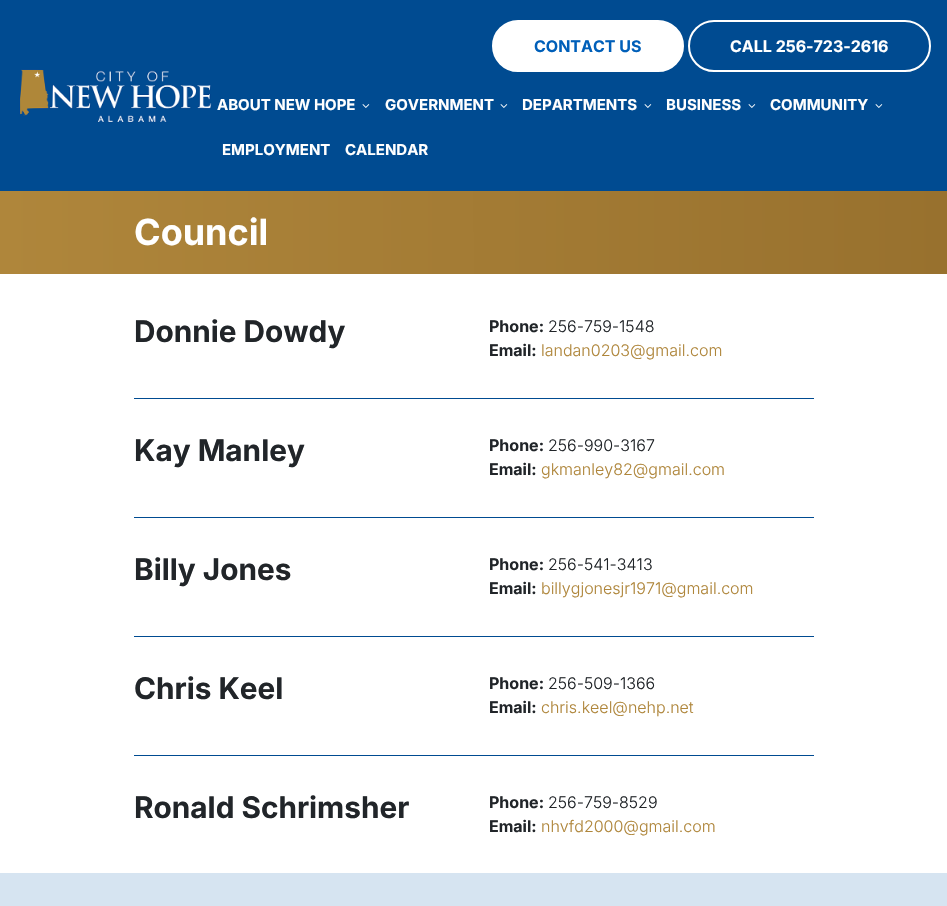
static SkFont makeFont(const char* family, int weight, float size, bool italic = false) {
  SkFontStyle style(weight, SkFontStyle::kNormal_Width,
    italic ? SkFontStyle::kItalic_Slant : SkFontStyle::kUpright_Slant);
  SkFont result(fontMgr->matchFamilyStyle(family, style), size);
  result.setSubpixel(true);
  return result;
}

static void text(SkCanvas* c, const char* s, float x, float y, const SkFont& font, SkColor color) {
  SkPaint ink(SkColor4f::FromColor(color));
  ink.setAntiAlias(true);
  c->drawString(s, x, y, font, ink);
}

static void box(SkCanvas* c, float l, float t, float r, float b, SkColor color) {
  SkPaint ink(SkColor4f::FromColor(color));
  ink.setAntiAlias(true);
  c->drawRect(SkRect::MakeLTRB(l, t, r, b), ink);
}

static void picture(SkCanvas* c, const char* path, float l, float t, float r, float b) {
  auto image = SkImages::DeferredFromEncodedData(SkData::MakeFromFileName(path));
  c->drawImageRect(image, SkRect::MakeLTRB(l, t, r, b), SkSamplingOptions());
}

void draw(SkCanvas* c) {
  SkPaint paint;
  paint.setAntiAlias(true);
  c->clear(0xffffffff);
  box(c, 0, 0, 947, 191, 0xff004b91);
  picture(c, "img_01.png", 19, 69, 212, 123);
  paint.setColor(0xffffffff);
  c->drawRoundRect(SkRect::MakeLTRB(493, 21, 683, 71), 25, 25, paint);
  paint.setStyle(SkPaint::kStroke_Style);
  paint.setStrokeWidth(2);
  c->drawRoundRect(SkRect::MakeLTRB(493, 21, 683, 71), 25, 25, paint);
  SkFont face1 = makeFont("Inter", 700, 16);
  text(c, "CONTACT US", 534, 52, face1, 0xff005fb9);
  c->drawRoundRect(SkRect::MakeLTRB(689, 21, 930, 71), 25, 25, paint);
  text(c, "CALL 256-723-2616", 730, 52, face1, 0xffffffff);
  SkFont face2 = makeFont("Inter", 700, 15);
  text(c, "ABOUT NEW HOPE", 217, 110, face2, 0xffffffff);
  picture(c, "img_02.png", 362, 104, 370, 108);
  text(c, "GOVERNMENT", 385, 110, face2, 0xffffffff);
  picture(c, "img_02.png", 500, 104, 508, 108);
  text(c, "DEPARTMENTS", 522, 110, face2, 0xffffffff);
  picture(c, "img_02.png", 644, 104, 652, 108);
  text(c, "BUSINESS", 666, 110, face2, 0xffffffff);
  picture(c, "img_02.png", 748, 104, 756, 108);
  text(c, "COMMUNITY", 770, 110, face2, 0xffffffff);
  picture(c, "img_02.png", 875, 104, 883, 108);
  text(c, "EMPLOYMENT", 222, 155, face2, 0xffffffff);
  text(c, "CALENDAR", 345, 155, face2, 0xffffffff);
  paint.setStyle(SkPaint::kFill_Style);
  {
    const SkColor colors[] = {0xffaf863b, 0xff98712e};
    const float stops[] = {0, 1};
    const SkPoint ends[] = {{0, 233}, {947, 232}};
    paint.setShader(SkGradientShader::MakeLinear(ends, colors, stops, 2, SkTileMode::kClamp));
    paint.setAlpha(255);
  }
  c->drawRect(SkRect::MakeLTRB(0, 191, 947, 274), paint);
  SkFont face3 = makeFont("Inter", 700, 36);
  text(c, "Council", 134, 245, face3, 0xffffffff);
  SkFont face4 = makeFont("Inter", 700, 29.75f);
  text(c, "Donnie Dowdy", 134, 342, face4, 0xff212529);
  text(c, "Phone:", 489, 332, face1, 0xff212529);
  SkFont face5 = makeFont("Inter", 300, 16);
  text(c, "256-759-1548", 548, 332, face5, 0xff212529);
  text(c, "Email:", 489, 356, face1, 0xff212529);
  text(c, "landan0203@gmail.com", 541, 356, face5, 0xffaf863b);
  box(c, 134, 398, 814, 399, 0xff004b91);
  text(c, "Kay Manley", 134, 461, face4, 0xff212529);
  text(c, "Phone:", 489, 451, face1, 0xff212529);
  text(c, "256-990-3167", 548, 451, face5, 0xff212529);
  text(c, "Email:", 489, 475, face1, 0xff212529);
  text(c, "gkmanley82@gmail.com", 541, 475, face5, 0xffaf863b);
  box(c, 134, 517, 814, 518, 0xff004b91);
  text(c, "Billy Jones", 134, 580, face4, 0xff212529);
  text(c, "Phone:", 489, 570, face1, 0xff212529);
  text(c, "256-541-3413", 548, 570, face5, 0xff212529);
  text(c, "Email:", 489, 594, face1, 0xff212529);
  text(c, "billygjonesjr1971@gmail.com", 541, 594, face5, 0xffaf863b);
  box(c, 134, 636, 814, 637, 0xff004b91);
  text(c, "Chris Keel", 134, 699, face4, 0xff212529);
  text(c, "Phone:", 489, 689, face1, 0xff212529);
  text(c, "256-509-1366", 548, 689, face5, 0xff212529);
  text(c, "Email:", 489, 713, face1, 0xff212529);
  text(c, "chris.keel@nehp.net", 541, 713, face5, 0xffaf863b);
  box(c, 134, 755, 814, 756, 0xff004b91);
  text(c, "Ronald Schrimsher", 134, 818, face4, 0xff212529);
  text(c, "Phone:", 489, 808, face1, 0xff212529);
  text(c, "256-759-8529", 548, 808, face5, 0xff212529);
  text(c, "Email:", 489, 832, face1, 0xff212529);
  text(c, "nhvfd2000@gmail.com", 541, 832, face5, 0xffaf863b);
  box(c, 0, 873, 947, 906, 0xffd6e4f1);
}
